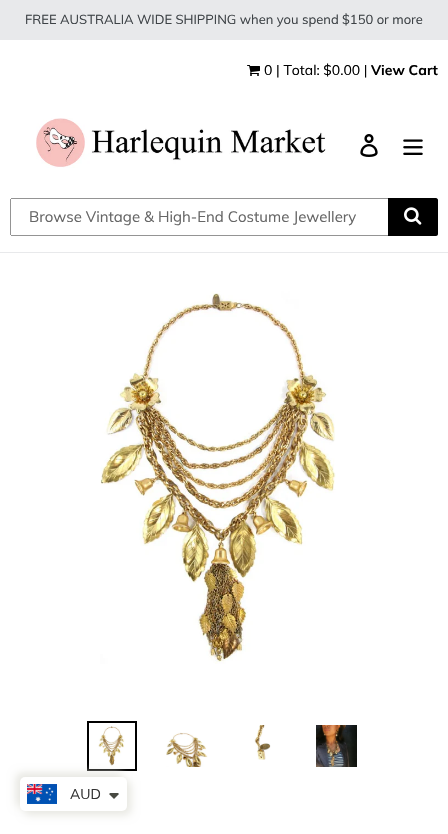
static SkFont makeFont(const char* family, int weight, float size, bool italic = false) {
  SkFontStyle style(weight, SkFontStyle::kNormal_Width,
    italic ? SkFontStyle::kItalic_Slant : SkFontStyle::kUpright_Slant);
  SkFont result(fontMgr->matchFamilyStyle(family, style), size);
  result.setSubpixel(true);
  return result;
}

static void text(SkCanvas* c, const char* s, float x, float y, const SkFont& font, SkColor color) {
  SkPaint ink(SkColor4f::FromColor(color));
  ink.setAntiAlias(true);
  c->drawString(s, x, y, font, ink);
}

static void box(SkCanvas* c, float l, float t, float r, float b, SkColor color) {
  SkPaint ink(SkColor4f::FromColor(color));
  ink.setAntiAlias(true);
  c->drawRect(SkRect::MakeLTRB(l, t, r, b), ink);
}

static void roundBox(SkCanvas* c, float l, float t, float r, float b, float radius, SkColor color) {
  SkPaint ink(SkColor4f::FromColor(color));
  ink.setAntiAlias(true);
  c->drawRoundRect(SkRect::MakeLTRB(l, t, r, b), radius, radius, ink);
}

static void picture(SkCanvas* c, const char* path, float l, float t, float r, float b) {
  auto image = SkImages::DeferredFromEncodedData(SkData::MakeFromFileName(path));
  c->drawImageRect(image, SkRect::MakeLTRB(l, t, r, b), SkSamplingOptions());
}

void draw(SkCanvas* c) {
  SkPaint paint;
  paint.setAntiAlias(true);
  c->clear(0xffffffff);
  box(c, 0, 0, 448, 40, 0xffe8e9eb);
  SkFont face1 = makeFont("Muli", 400, 13);
  text(c, "FREE AUSTRALIA WIDE SHIPPING when you spend $150 or more", 25, 24, face1, 0xff3d4246);
  box(c, 0, 252, 448, 253, 0xffe8e9eb);
  picture(c, "img_01.png", 247, 65, 260, 76);
  SkFont face2 = makeFont("Muli", 400, 14);
  text(c, "0 | Total: $0.00 |", 264, 75, face2, 0xff000000);
  SkFont face3 = makeFont("Muli", 700, 14);
  text(c, "View Cart", 371, 75, face3, 0xff000000);
  picture(c, "img_02.png", 36, 118, 326, 168);
  picture(c, "img_03.png", 360, 134, 378, 157);
  picture(c, "img_04.png", 403, 139, 423, 155);
  box(c, 11, 198, 388, 199, 0xff949494);
  box(c, 11, 235, 388, 236, 0xff949494);
  box(c, 10, 199, 11, 235, 0xff949494);
  SkFont face4 = makeFont("Muli", 400, 15);
  text(c, "Browse Vintage & High-End Costume Jewellery", 29, 222, face4, 0xff666666);
  paint.setColor(0xff000000);
  c->drawPath(SkPathBuilder().moveTo(388, 198).lineTo(436, 198).cubicTo(437, 198, 438, 199, 438, 200).lineTo(438, 234).cubicTo(438, 235, 437, 236, 436, 236).lineTo(388, 236).close().detach(), paint);
  picture(c, "img_05.png", 404, 207, 422, 225);
  picture(c, "img_06.png", 100, 291, 336, 664);
  paint.setStyle(SkPaint::kStroke_Style);
  paint.setStrokeWidth(2);
  c->drawRect(SkRect::MakeLTRB(88, 722, 136, 770), paint);
  picture(c, "img_07.png", 98, 726, 125, 766);
  picture(c, "img_08.png", 166, 732, 208, 767);
  picture(c, "img_09.png", 254, 725, 271, 760);
  picture(c, "img_10.png", 316, 725, 357, 767);
  paint.setStyle(SkPaint::kFill_Style);
  paint.setColor(0xffe8e8e2);
  paint.setMaskFilter(SkMaskFilter::MakeBlur(kNormal_SkBlurStyle, 4.5f));
  c->drawRoundRect(SkRect::MakeLTRB(16, 773, 123, 807), 5, 5, paint);
  paint.setMaskFilter(nullptr);
  paint.setMaskFilter(SkMaskFilter::MakeBlur(kNormal_SkBlurStyle, 4.5f));
  c->drawRoundRect(SkRect::MakeLTRB(24, 781, 131, 815), 5, 5, paint);
  paint.setMaskFilter(nullptr);
  roundBox(c, 20, 777, 127, 811, 5, 0xffffffff);
  picture(c, "img_11.png", 27, 784, 57, 804);
  text(c, "AUD", 70, 799, face2, 0xff333333);
  paint.setColor(0xff474942);
  c->drawPath(SkPathBuilder().moveTo(111, 793).cubicTo(110, 793, 109.5f, 793.5f, 109, 794).lineTo(114, 799).lineTo(119, 794).lineTo(118, 793).close().detach(), paint);
}
